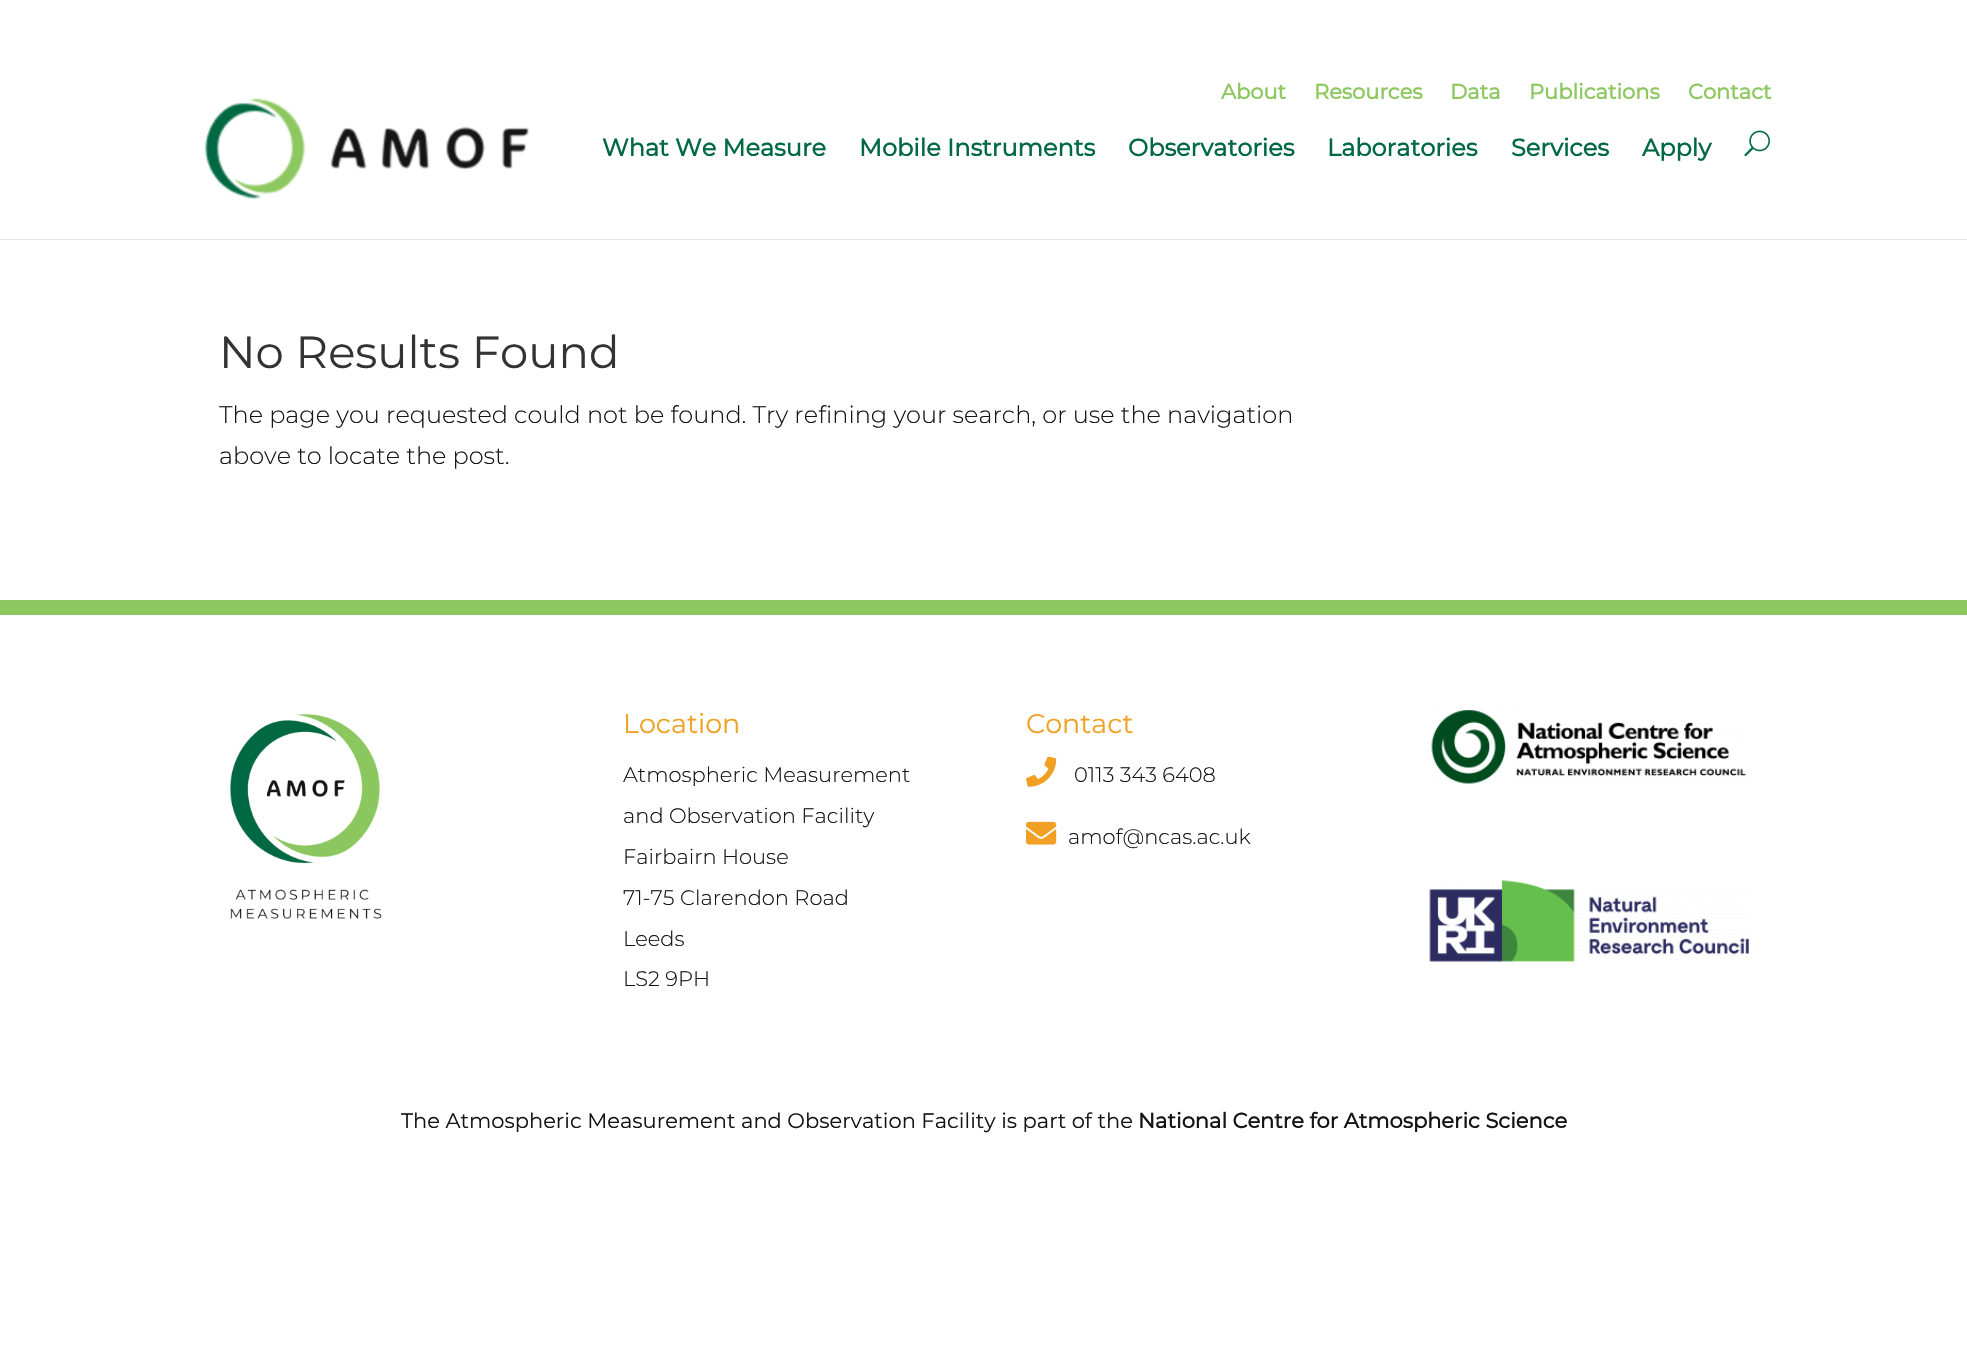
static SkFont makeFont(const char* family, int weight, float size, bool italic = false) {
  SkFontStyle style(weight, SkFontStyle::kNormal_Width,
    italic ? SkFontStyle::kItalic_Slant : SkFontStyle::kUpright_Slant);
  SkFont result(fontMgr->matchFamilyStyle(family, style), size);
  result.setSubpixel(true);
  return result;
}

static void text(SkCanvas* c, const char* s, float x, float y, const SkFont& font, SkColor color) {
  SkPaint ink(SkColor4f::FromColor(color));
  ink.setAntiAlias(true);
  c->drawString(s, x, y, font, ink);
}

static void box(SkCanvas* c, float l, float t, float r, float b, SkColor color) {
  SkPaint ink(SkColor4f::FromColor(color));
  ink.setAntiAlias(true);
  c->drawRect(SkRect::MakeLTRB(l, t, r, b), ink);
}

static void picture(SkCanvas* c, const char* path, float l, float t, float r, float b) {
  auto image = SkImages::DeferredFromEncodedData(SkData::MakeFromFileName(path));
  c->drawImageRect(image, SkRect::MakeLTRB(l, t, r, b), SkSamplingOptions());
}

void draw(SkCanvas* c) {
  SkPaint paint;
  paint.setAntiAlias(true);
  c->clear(0xffffffff);
  box(c, 0, 239, 1967, 240, 0xffe6e6e6);
  SkFont face1 = makeFont("Montserrat", 700, 21);
  text(c, "About", 1221, 99, face1, 0xff8cc85f);
  text(c, "Resources", 1314, 99, face1, 0xff8cc85f);
  text(c, "Data", 1450, 99, face1, 0xff8cc85f);
  text(c, "Publications", 1529, 99, face1, 0xff8cc85f);
  text(c, "Contact", 1688, 99, face1, 0xff8cc85f);
  picture(c, "img_01.png", 204, 98, 529, 199);
  SkFont face2 = makeFont("Montserrat", 700, 24);
  text(c, "What We Measure", 602, 156, face2, 0xff006944);
  text(c, "Mobile Instruments", 859, 156, face2, 0xff006944);
  text(c, "Observatories", 1128, 156, face2, 0xff006944);
  text(c, "Laboratories", 1327, 156, face2, 0xff006944);
  text(c, "Services", 1511, 156, face2, 0xff006944);
  text(c, "Apply", 1642, 156, face2, 0xff006944);
  picture(c, "img_02.png", 1744, 130, 1770, 157);
  SkFont face3 = makeFont("Montserrat", 100, 45);
  text(c, "No Results Found", 219, 368, face3, 0xff333333);
  SkFont face4 = makeFont("Montserrat", 300, 24);
  text(c, "The page you requested could not be found. Try refining your search, or use the navigation", 219, 423, face4, 0xff141414);
  text(c, "above to locate the post.", 219, 464, face4, 0xff141414);
  box(c, 0, 600, 1967, 615, 0xff8cc85f);
  picture(c, "img_03.png", 230, 713, 382, 919);
  SkFont face5 = makeFont("Montserrat", 100, 27);
  text(c, "Location", 623, 733, face5, 0xfff0a023);
  SkFont face6 = makeFont("Montserrat", 300, 21);
  text(c, "Atmospheric Measurement", 623, 782, face6, 0xff141414);
  text(c, "and Observation Facility", 623, 823, face6, 0xff141414);
  text(c, "Fairbairn House", 623, 864, face6, 0xff141414);
  text(c, "71-75 Clarendon Road", 623, 905, face6, 0xff141414);
  text(c, "Leeds", 623, 946, face6, 0xff141414);
  text(c, "LS2 9PH", 623, 986, face6, 0xff141414);
  text(c, "Contact", 1026, 733, face5, 0xfff0a023);
  picture(c, "img_04.png", 1026, 756, 1057, 787);
  text(c, "0113 343 6408", 1074, 782, face6, 0xff141414);
  picture(c, "img_05.png", 1026, 821, 1057, 845);
  text(c, "amof@ncas.ac.uk", 1068, 844, face6, 0xff141414);
  picture(c, "img_06.png", 1431, 709, 1746, 784);
  picture(c, "img_07.png", 1429, 880, 1749, 962);
  SkFont face7 = makeFont("Montserrat", 100, 21);
  text(c, "The Atmospheric Measurement and Observation Facility is part of the", 401, 1128, face7, 0xff141414);
  text(c, "National Centre for Atmospheric Science", 1138, 1128, face1, 0xff141414);
}
